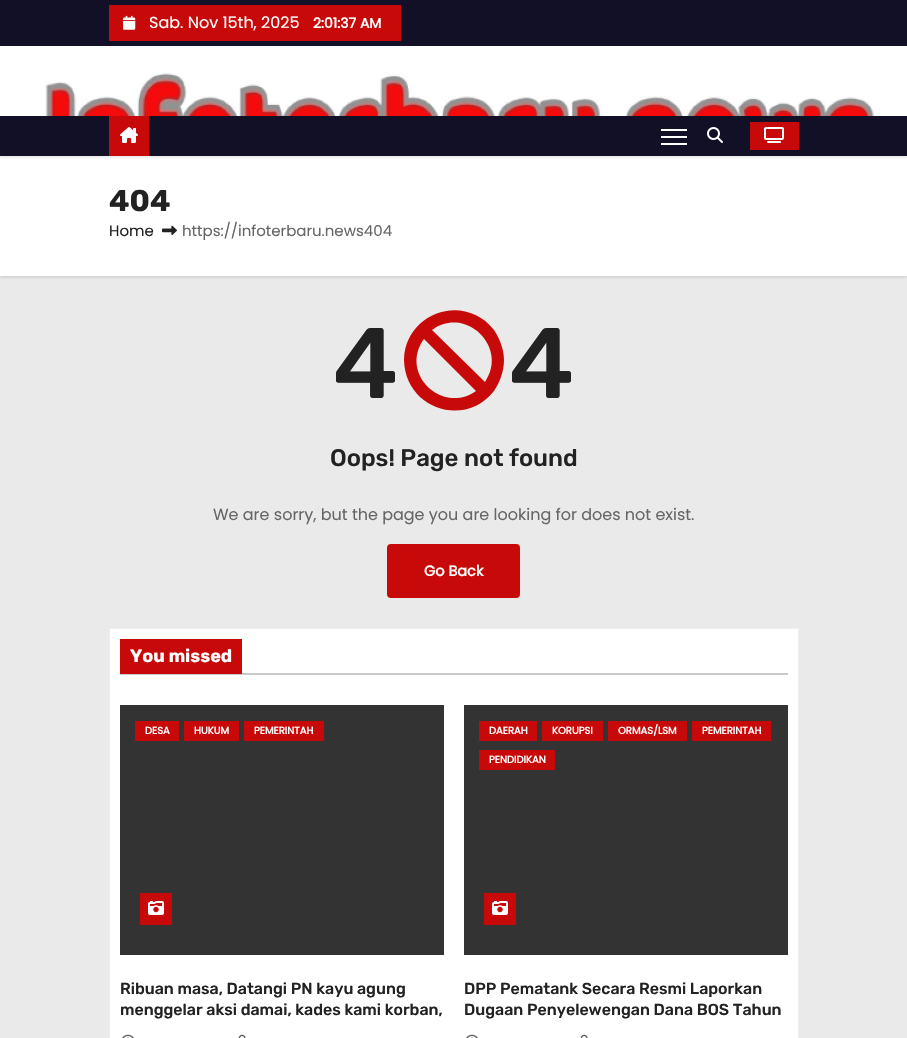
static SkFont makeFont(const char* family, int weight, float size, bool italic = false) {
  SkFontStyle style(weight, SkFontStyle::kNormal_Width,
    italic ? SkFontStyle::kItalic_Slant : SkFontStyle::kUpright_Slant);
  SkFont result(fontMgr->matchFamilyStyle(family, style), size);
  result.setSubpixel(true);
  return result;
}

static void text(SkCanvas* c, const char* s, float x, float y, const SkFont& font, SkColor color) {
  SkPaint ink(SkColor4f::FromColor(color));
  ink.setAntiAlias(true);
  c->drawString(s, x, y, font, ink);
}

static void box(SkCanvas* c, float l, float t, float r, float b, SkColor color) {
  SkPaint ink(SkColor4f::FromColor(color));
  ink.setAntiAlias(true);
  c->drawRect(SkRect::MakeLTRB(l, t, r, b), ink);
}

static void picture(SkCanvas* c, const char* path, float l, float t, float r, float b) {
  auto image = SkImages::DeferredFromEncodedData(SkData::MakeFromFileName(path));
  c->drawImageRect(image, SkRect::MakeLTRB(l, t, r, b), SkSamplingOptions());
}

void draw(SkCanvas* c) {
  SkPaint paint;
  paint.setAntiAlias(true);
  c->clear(0xffeaeaea);
  box(c, 0, 0, 907, 46, 0xff121026);
  box(c, 109, 5, 401, 41, 0xffc70909);
  picture(c, "img_01.png", 123, 15, 136, 30);
  SkFont face1 = makeFont("Poppins", 400, 16);
  text(c, "Sab. Nov 15th, 2025", 149, 28, face1, 0xffffffff);
  SkFont face2 = makeFont("Poppins", 700, 14);
  text(c, "2:01:37 AM", 313, 28, face2, 0xffffffff);
  picture(c, "img_02.png", 0, 46, 907, 116);
  paint.setColor(0x26000000);
  paint.setMaskFilter(SkMaskFilter::MakeBlur(kNormal_SkBlurStyle, 1.5f));
  c->drawRect(SkRect::MakeLTRB(0, 157, 907, 277), paint);
  paint.setMaskFilter(nullptr);
  box(c, 0, 156, 907, 276, 0xffffffff);
  paint.setColor(0x14000000);
  paint.setMaskFilter(SkMaskFilter::MakeBlur(kNormal_SkBlurStyle, 1));
  c->drawRect(SkRect::MakeLTRB(0, 118, 907, 158), paint);
  paint.setMaskFilter(nullptr);
  box(c, 0, 116, 907, 156, 0xff121026);
  box(c, 109, 116, 149, 156, 0xffc70909);
  picture(c, "img_03.png", 120, 127, 138, 143);
  box(c, 661, 129, 687, 131, 0xffffffff);
  box(c, 661, 136, 687, 138, 0xffffffff);
  box(c, 661, 143, 687, 145, 0xffffffff);
  picture(c, "img_04.png", 707, 127, 723, 143);
  box(c, 750, 122, 799, 150, 0xffc70909);
  picture(c, "img_05.png", 764, 127, 784, 143);
  SkFont face3 = makeFont("Rubik", 700, 30);
  text(c, "404", 109, 211, face3, 0xff222222);
  SkFont face4 = makeFont("Poppins", 400, 15);
  text(c, "Home", 109, 236, face4, 0xff222222);
  picture(c, "img_06.png", 162, 225, 177, 235);
  text(c, "https://infoterbaru.news404", 182, 236, face4, 0xff666666);
  SkFont face5 = makeFont("Rubik", 500, 100);
  text(c, "4", 333, 398, face5, 0xff222222);
  paint.setColor(0xffc70909);
  c->drawPath(SkPathBuilder().moveTo(476, 391).lineTo(424, 339).cubicTo(399, 373, 442, 415, 476, 391).close().moveTo(485, 382).cubicTo(509, 348, 466, 305, 432, 330).close().moveTo(404, 360).cubicTo(405, 313, 464, 292, 494, 330).cubicTo(500, 339, 504, 350, 504, 360).cubicTo(504, 371, 500, 382, 494, 391).cubicTo(464, 429, 405, 408, 404, 360).close().detach(), paint);
  text(c, "4", 509, 398, face5, 0xff222222);
  SkFont face6 = makeFont("Rubik", 500, 24);
  text(c, "Oops! Page not found", 330, 466, face6, 0xff222222);
  text(c, "We are sorry, but the page you are looking for does not exist.", 213, 520, face1, 0xff666666);
  c->drawRoundRect(SkRect::MakeLTRB(388, 545, 519, 597), 3, 3, paint);
  paint.setStyle(SkPaint::kStroke_Style);
  paint.setStrokeWidth(2);
  c->drawRoundRect(SkRect::MakeLTRB(388, 545, 519, 597), 3, 3, paint);
  SkFont face7 = makeFont("Poppins", 700, 14.5f);
  text(c, "Go Back", 424, 576, face7, 0xffffffff);
  paint.setStyle(SkPaint::kFill_Style);
  paint.setColor(0xffffffff);
  c->drawRect(SkRect::MakeLTRB(109.5f, 628.5f, 798.5f, 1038.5f), paint);
  paint.setStyle(SkPaint::kStroke_Style);
  paint.setStrokeWidth(1);
  paint.setColor(0xffeeeeee);
  c->drawRect(SkRect::MakeLTRB(109.5f, 628.5f, 798.5f, 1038.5f), paint);
  box(c, 120, 673, 788, 675, 0xffc8c8cd);
  box(c, 120, 639, 242, 674, 0xffc70909);
  SkFont face8 = makeFont("Rubik", 700, 18);
  text(c, "You missed", 130, 662, face8, 0xffffffff);
  box(c, 120, 705, 444, 955, 0xff333333);
  box(c, 135, 721, 179, 741, 0xffc70909);
  SkFont face9 = makeFont("Poppins", 700, 10);
  text(c, "DESA", 145, 734, face9, 0xffffffff);
  box(c, 184, 721, 239, 741, 0xffc70909);
  text(c, "HUKUM", 194, 734, face9, 0xffffffff);
  box(c, 244, 721, 324, 741, 0xffc70909);
  text(c, "PEMERINTAH", 254, 734, face9, 0xffffffff);
  box(c, 140, 893, 172, 925, 0xffc70909);
  picture(c, "img_07.png", 148, 901, 164, 915);
  SkFont face10 = makeFont("Rubik", 500, 16);
  text(c, "Ribuan masa, Datangi PN kayu agung", 120, 994, face10, 0xff222222);
  text(c, "menggelar aksi damai, kades kami korban,", 120, 1015, face10, 0xff222222);
  picture(c, "img_08.png", 122, 1034, 134, 1038);
  picture(c, "img_09.png", 238, 1034, 246, 1038);
  box(c, 464, 705, 788, 955, 0xff333333);
  box(c, 479, 721, 537, 741, 0xffc70909);
  text(c, "DAERAH", 489, 734, face9, 0xffffffff);
  box(c, 542, 721, 603, 741, 0xffc70909);
  text(c, "KORUPSI", 552, 734, face9, 0xffffffff);
  box(c, 608, 721, 687, 741, 0xffc70909);
  text(c, "ORMAS/LSM", 618, 734, face9, 0xffffffff);
  box(c, 692, 721, 771, 741, 0xffc70909);
  text(c, "PEMERINTAH", 702, 734, face9, 0xffffffff);
  box(c, 479, 750, 555, 770, 0xffc70909);
  text(c, "PENDIDIKAN", 489, 763, face9, 0xffffffff);
  box(c, 484, 893, 516, 925, 0xffc70909);
  picture(c, "img_07.png", 492, 901, 508, 915);
  text(c, "DPP Pematank Secara Resmi Laporkan", 464, 994, face10, 0xff222222);
  text(c, "Dugaan Penyelewengan Dana BOS Tahun", 464, 1015, face10, 0xff222222);
  picture(c, "img_08.png", 466, 1034, 478, 1038);
  picture(c, "img_09.png", 580, 1034, 588, 1038);
}
